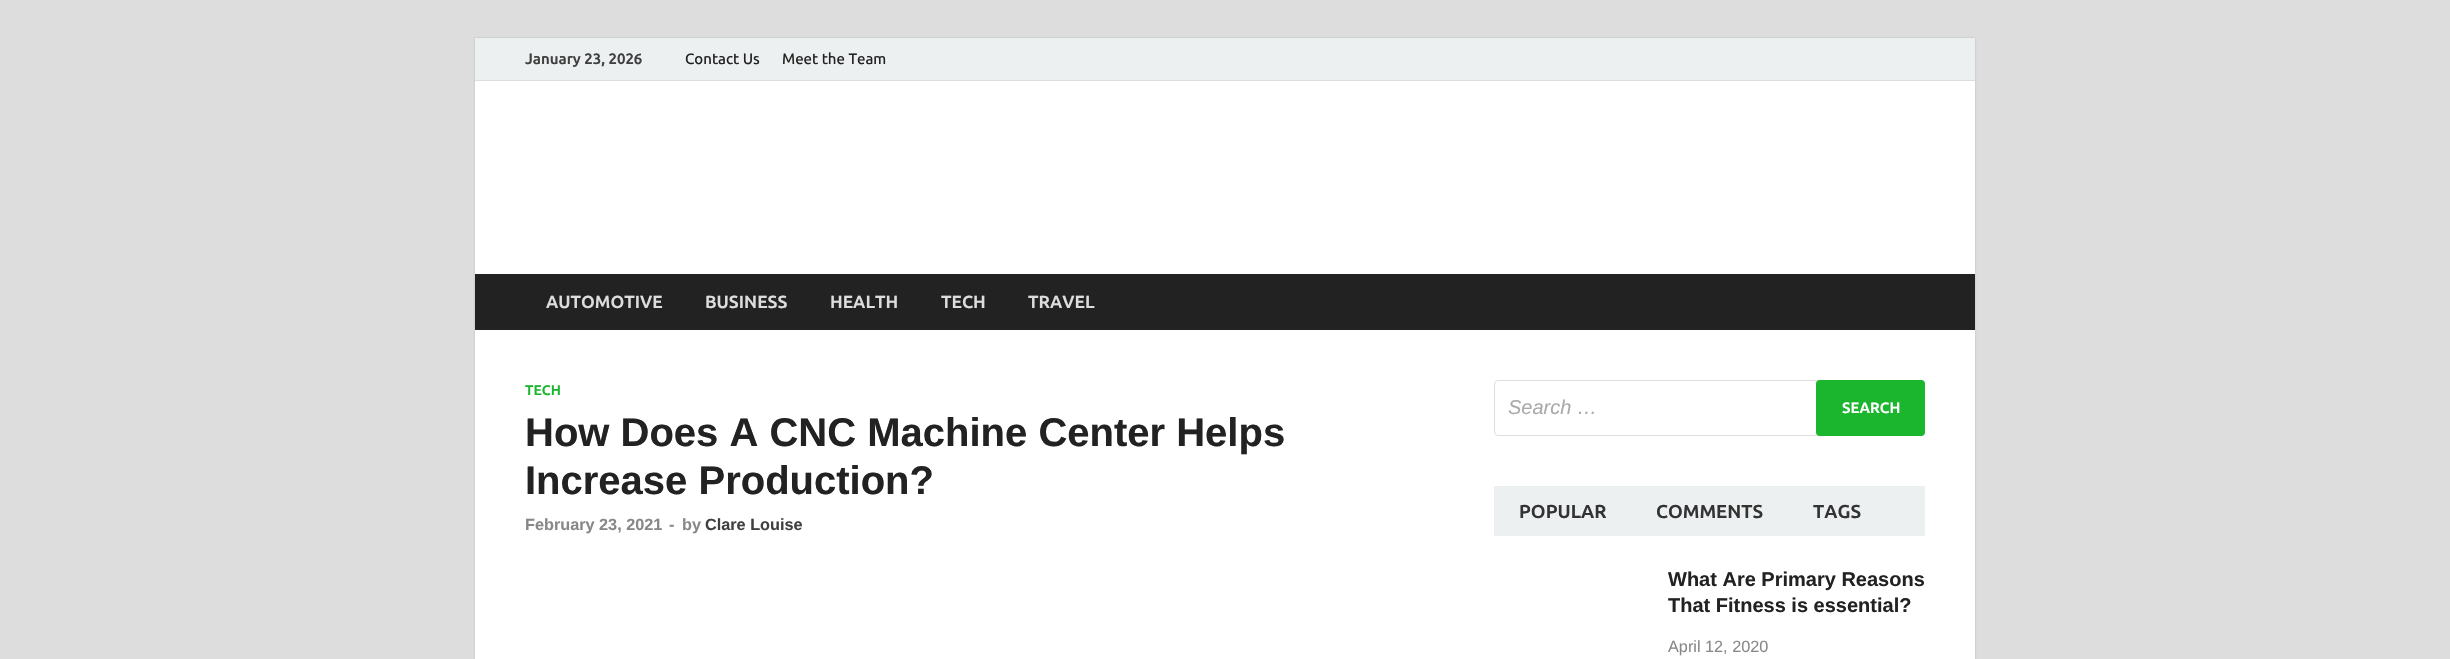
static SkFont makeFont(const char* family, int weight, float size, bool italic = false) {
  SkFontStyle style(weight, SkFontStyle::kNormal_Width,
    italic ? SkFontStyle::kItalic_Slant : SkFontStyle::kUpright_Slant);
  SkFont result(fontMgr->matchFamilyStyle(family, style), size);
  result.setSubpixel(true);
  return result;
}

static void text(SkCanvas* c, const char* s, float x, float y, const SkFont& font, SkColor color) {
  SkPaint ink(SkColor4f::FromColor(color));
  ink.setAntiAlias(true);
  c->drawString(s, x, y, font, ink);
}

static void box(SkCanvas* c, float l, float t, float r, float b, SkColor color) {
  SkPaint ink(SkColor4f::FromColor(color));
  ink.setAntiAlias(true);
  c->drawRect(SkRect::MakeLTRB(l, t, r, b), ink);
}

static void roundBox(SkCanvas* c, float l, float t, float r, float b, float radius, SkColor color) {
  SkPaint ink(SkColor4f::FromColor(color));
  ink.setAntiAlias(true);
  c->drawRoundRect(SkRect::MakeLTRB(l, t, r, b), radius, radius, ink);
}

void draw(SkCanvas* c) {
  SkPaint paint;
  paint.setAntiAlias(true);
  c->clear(0xffdddddd);
  paint.setColor(0xffbbbbbb);
  paint.setMaskFilter(SkMaskFilter::MakeBlur(kNormal_SkBlurStyle, 1));
  c->drawRect(SkRect::MakeLTRB(475, 38, 1975, 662), paint);
  paint.setMaskFilter(nullptr);
  box(c, 475, 81, 1975, 659, 0xffffffff);
  box(c, 475, 38, 1975, 80, 0xffecf0f1);
  box(c, 475, 80, 1975, 81, 0xffdddddd);
  SkFont face1 = makeFont("Ubuntu", 700, 15);
  text(c, "January 23, 2026", 525, 64, face1, 0xff404040);
  SkFont face2 = makeFont("Ubuntu", 500, 15);
  text(c, "Contact Us", 685, 64, face2, 0xff222222);
  text(c, "Meet the Team", 782, 64, face2, 0xff222222);
  box(c, 475, 274, 1975, 330, 0xff222222);
  SkFont face3 = makeFont("Ubuntu", 700, 17.5f);
  text(c, "AUTOMOTIVE", 546, 308, face3, 0xffdddddd);
  text(c, "BUSINESS", 705, 308, face3, 0xffdddddd);
  text(c, "HEALTH", 830, 308, face3, 0xffdddddd);
  text(c, "TECH", 941, 308, face3, 0xffdddddd);
  text(c, "TRAVEL", 1028, 308, face3, 0xffdddddd);
  SkFont face4 = makeFont("Ubuntu", 700, 14);
  text(c, "TECH", 525, 395, face4, 0xff1cb52e);
  SkFont face5 = makeFont("Liberation Sans", 700, 40);
  text(c, "How Does A CNC Machine Center Helps", 525, 446, face5, 0xff222222);
  text(c, "Increase Production?", 525, 494, face5, 0xff222222);
  SkFont face6 = makeFont("Liberation Sans", 700, 16.25f);
  text(c, "February 23, 2021", 525, 530, face6, 0xff888888);
  text(c, "-", 669, 530, face6, 0xff888888);
  text(c, "by", 682, 530, face6, 0xff888888);
  text(c, "Clare Louise", 705, 530, face6, 0xff404040);
  paint.setStyle(SkPaint::kStroke_Style);
  paint.setStrokeWidth(1);
  paint.setColor(0xffdddddd);
  c->drawRoundRect(SkRect::MakeLTRB(1494.5f, 380.5f, 1924.5f, 435.5f), 3.5f, 3.5f, paint);
  SkFont face7 = makeFont("Liberation Sans", 400, 20, true);
  text(c, "Search …", 1508, 414, face7, 0xffaaaaaa);
  roundBox(c, 1816, 380, 1925, 436, 4, 0xff1cb52e);
  text(c, "SEARCH", 1842, 413, face1, 0xffffffff);
  box(c, 1494, 486, 1925, 536, 0xffecf0f1);
  SkFont face8 = makeFont("Ubuntu", 700, 18.75f);
  text(c, "POPULAR", 1519, 518, face8, 0xff333333);
  text(c, "COMMENTS", 1656, 518, face8, 0xff333333);
  text(c, "TAGS", 1813, 518, face8, 0xff333333);
  SkFont face9 = makeFont("Liberation Sans", 700, 20);
  text(c, "What Are Primary Reasons", 1668, 586, face9, 0xff222222);
  c->save();
  c->clipRect(SkRect::MakeLTRB(1668, 568, 1925, 659));
  text(c, "That Fitness is essential?", 1668, 612, face9, 0xff222222);
  c->restore();
  SkFont face10 = makeFont("Liberation Sans", 400, 16.25f);
  text(c, "April 12, 2020", 1668, 652, face10, 0xff888888);
}
